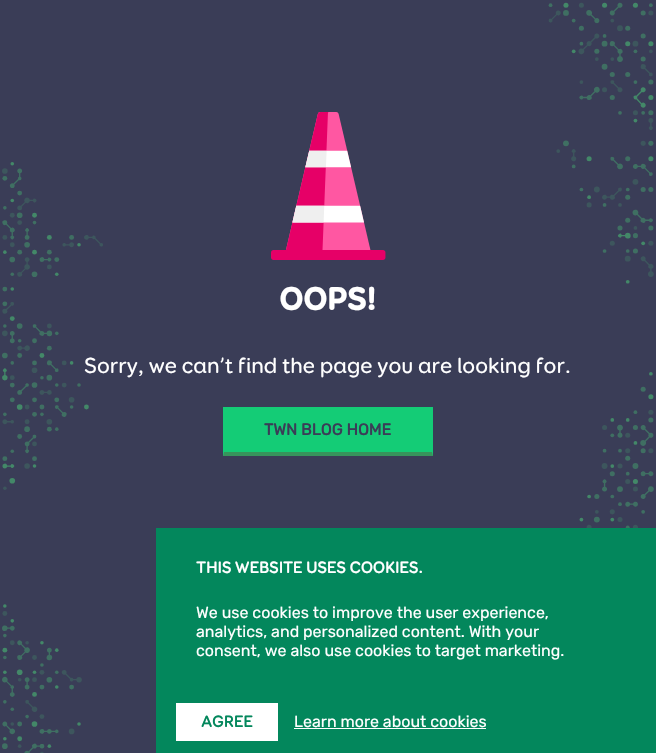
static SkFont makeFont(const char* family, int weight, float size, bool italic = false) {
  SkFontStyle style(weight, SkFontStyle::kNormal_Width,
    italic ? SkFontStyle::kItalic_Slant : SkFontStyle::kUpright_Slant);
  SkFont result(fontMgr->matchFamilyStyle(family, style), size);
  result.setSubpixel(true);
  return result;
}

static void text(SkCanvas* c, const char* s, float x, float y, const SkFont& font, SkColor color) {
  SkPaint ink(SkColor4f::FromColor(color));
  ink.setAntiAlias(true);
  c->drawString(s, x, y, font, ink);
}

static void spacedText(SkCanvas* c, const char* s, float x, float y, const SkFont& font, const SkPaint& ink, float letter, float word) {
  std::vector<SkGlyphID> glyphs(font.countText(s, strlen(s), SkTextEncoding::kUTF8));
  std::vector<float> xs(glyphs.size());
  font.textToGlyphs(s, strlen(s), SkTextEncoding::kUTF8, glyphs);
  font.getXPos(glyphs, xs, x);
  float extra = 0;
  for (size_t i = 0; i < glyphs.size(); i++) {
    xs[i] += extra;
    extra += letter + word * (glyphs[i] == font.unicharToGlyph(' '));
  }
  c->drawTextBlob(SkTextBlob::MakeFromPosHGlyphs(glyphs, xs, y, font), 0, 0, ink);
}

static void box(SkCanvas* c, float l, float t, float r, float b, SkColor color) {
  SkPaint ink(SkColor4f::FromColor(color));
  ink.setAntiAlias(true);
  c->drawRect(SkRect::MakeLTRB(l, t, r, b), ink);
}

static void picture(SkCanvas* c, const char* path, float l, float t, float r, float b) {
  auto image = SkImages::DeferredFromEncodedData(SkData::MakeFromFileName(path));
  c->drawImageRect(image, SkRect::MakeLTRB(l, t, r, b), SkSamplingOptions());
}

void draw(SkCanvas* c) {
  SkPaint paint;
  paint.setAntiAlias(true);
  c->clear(0xff3a3d57);
  SkFont face1 = makeFont("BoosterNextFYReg", 400, 22);
  text(c, "Sorry, we can’t find the page you are looking for.", 84, 373, face1, 0xffffffff);
  picture(c, "img_01.png", 2, 162, 103, 753);
  picture(c, "img_02.png", 271, 112, 386, 260);
  picture(c, "img_03.png", 548, 2, 654, 528);
  SkFont face2 = makeFont("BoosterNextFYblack", 700, 32);
  text(c, "OOPS!", 279, 310, face2, 0xffffffff);
  box(c, 223, 407, 433, 456, 0xff14cc76);
  paint.setColor(0xff37945c);
  c->drawPath(SkPathBuilder().moveTo(433, 456).lineTo(223, 456).lineTo(224, 452).lineTo(432, 452).close().detach(), paint);
  SkFont face3 = makeFont("Rubik", 700, 16);
  text(c, "TWN BLOG HOME", 264, 435, face3, 0xff3a3d57);
  box(c, 156, 528, 656, 753, 0xff03875c);
  SkFont face4 = makeFont("BoosterNextFYReg", 700, 16);
  paint.setColor(0xffffffff);
  spacedText(c, "THIS WEBSITE USES COOKIES.", 196, 573, face4, paint, 0.15f, 0);
  SkFont face5 = makeFont("Rubik", 400, 16);
  text(c, "We use cookies to improve the user experience,", 196, 618, face5, 0xffffffff);
  text(c, "analytics, and personalized content. With your", 196, 637, face5, 0xffffffff);
  text(c, "consent, we also use cookies to target marketing.", 196, 656, face5, 0xffffffff);
  box(c, 176, 703, 278, 741, 0xffffffff);
  paint.setColor(0xff03875c);
  spacedText(c, "AGREE", 201, 727, face4, paint, 0.15f, 0);
  text(c, "Learn more about cookies", 294, 727, face5, 0xffffffff);
  box(c, 294, 728, 486, 729, 0xffffffff);
}
